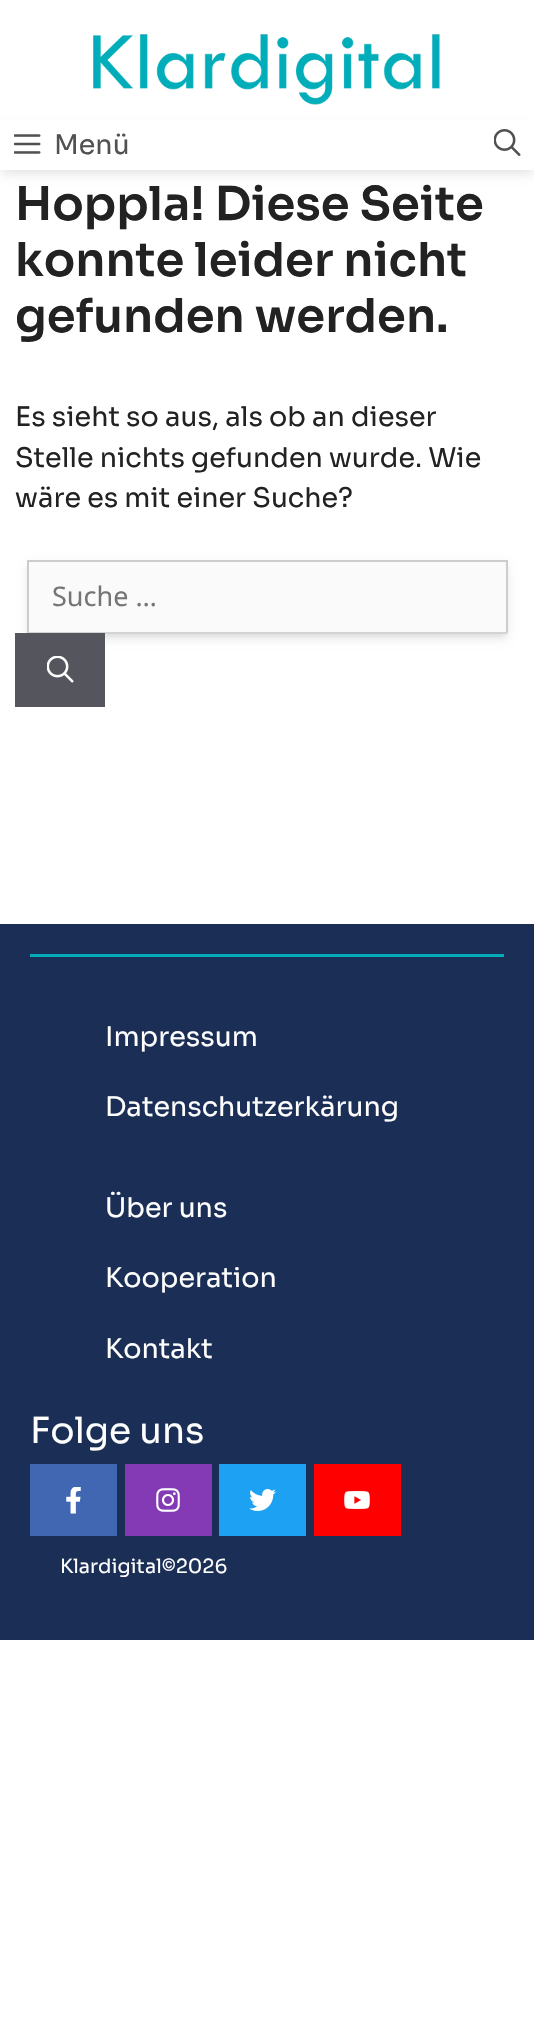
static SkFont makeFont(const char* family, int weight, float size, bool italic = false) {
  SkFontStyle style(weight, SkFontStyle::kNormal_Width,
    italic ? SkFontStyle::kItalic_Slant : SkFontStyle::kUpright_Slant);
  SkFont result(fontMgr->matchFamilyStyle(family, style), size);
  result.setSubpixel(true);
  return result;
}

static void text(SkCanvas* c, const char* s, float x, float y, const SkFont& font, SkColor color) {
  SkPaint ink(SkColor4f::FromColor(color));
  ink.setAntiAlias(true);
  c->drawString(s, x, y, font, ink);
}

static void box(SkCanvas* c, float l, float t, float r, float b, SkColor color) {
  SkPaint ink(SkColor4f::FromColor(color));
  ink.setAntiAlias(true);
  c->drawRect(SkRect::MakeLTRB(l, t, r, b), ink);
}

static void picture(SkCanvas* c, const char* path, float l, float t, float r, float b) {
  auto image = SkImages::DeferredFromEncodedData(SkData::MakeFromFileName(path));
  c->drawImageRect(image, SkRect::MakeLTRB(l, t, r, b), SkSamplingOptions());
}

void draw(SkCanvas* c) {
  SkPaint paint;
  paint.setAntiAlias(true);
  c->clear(0xffffffff);
  picture(c, "img_01.png", 93, 34, 440, 105);
  c->save();
  c->clipPath(SkPathBuilder(SkPathFillType::kEvenOdd).moveTo(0, 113).lineTo(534, 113).lineTo(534, 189).lineTo(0, 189).close().moveTo(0, 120).lineTo(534, 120).lineTo(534, 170).lineTo(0, 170).close().detach(), true);
  paint.setColor(0x1a000000);
  paint.setMaskFilter(SkMaskFilter::MakeBlur(kNormal_SkBlurStyle, 4.5f));
  c->drawRect(SkRect::MakeLTRB(2, 128, 533, 174), paint);
  paint.setMaskFilter(nullptr);
  c->restore();
  picture(c, "img_02.png", 14, 134, 41, 154);
  SkFont face1 = makeFont("Sora", 400, 27);
  text(c, "Menü", 54, 154, face1, 0xff515151);
  picture(c, "img_03.png", 494, 129, 521, 156);
  SkFont face2 = makeFont("Sora", 600, 46.5f);
  text(c, "Hoppla! Diese Seite", 15, 220, face2, 0xff222222);
  text(c, "konnte leider nicht", 15, 276, face2, 0xff222222);
  text(c, "gefunden werden.", 15, 332, face2, 0xff222222);
  text(c, "Es sieht so aus, als ob an dieser", 15, 426, face1, 0xff222222);
  text(c, "Stelle nichts gefunden wurde. Wie", 15, 467, face1, 0xff222222);
  text(c, "wäre es mit einer Suche?", 15, 507, face1, 0xff222222);
  paint.setColor(0x0f000000);
  paint.setMaskFilter(SkMaskFilter::MakeBlur(kNormal_SkBlurStyle, 3));
  c->drawRect(SkRect::MakeLTRB(29, 564, 506, 635), paint);
  paint.setMaskFilter(nullptr);
  paint.setColor(0x1a000000);
  paint.setMaskFilter(SkMaskFilter::MakeBlur(kNormal_SkBlurStyle, 4.5f));
  c->drawRect(SkRect::MakeLTRB(29, 567, 506, 638), paint);
  paint.setMaskFilter(nullptr);
  box(c, 29, 562, 506, 632, 0xfffafafa);
  box(c, 27, 560, 507, 562, 0xffcccccc);
  box(c, 506, 560, 508, 633, 0xffcccccc);
  box(c, 27, 632, 507, 634, 0xffd3d3d3);
  box(c, 27, 560, 29, 633, 0xffcccccc);
  SkFont face3 = makeFont("Noto Sans", 400, 27);
  text(c, "Suche …", 52, 606, face3, 0xff757575);
  box(c, 15, 633, 105, 707, 0xff55555e);
  picture(c, "img_04.png", 47, 656, 74, 683);
  box(c, 0, 924, 534, 1640, 0xff1b2e56);
  box(c, 30, 954, 504, 957, 0xff01adb9);
  text(c, "Impressum", 105, 1046, face1, 0xffffffff);
  text(c, "Datenschutzerkärung", 105, 1116, face1, 0xffffffff);
  text(c, "Über uns", 105, 1217, face1, 0xffffffff);
  text(c, "Kooperation", 105, 1287, face1, 0xffffffff);
  text(c, "Kontakt", 105, 1358, face1, 0xffffffff);
  SkFont face4 = makeFont("Sora", 400, 36);
  text(c, "Folge uns", 30, 1443, face4, 0xffffffff);
  box(c, 30, 1464, 117, 1536, 0xff4267b2);
  picture(c, "img_05.png", 66, 1487, 81, 1514);
  box(c, 125, 1464, 212, 1536, 0xff833ab4);
  picture(c, "img_06.png", 156, 1488, 180, 1512);
  box(c, 219, 1464, 306, 1536, 0xff1da1f2);
  picture(c, "img_07.png", 249, 1489, 276, 1511);
  box(c, 314, 1464, 401, 1536, 0xffff0000);
  picture(c, "img_08.png", 344, 1491, 370, 1509);
  SkFont face5 = makeFont("Sora", 400, 19.5f);
  text(c, "Klardigital©2026", 60, 1573, face5, 0xffffffff);
}
